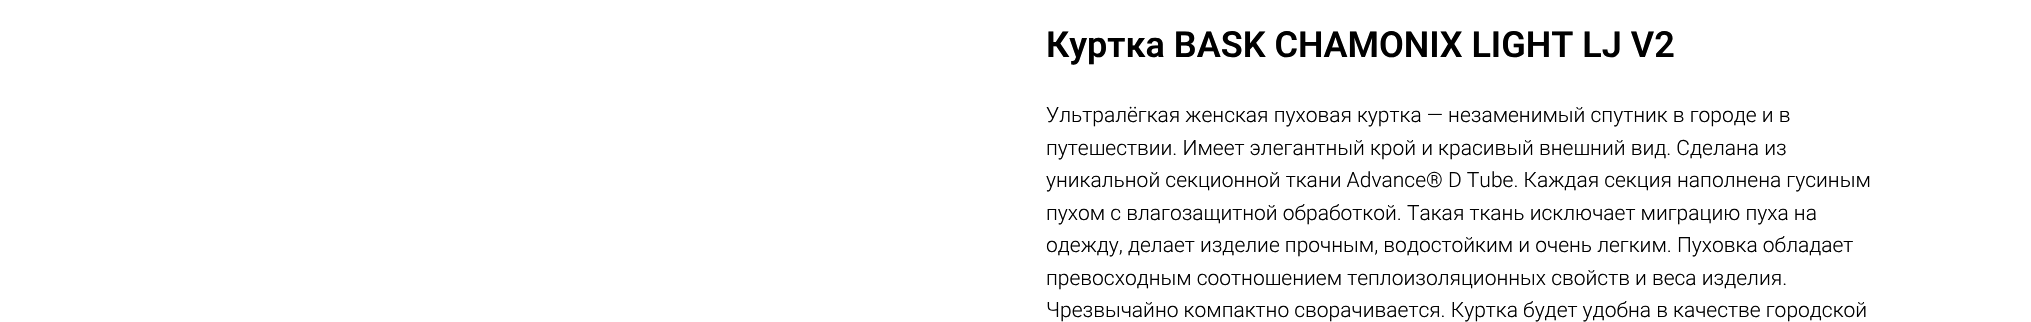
static SkFont makeFont(const char* family, int weight, float size, bool italic = false) {
  SkFontStyle style(weight, SkFontStyle::kNormal_Width,
    italic ? SkFontStyle::kItalic_Slant : SkFontStyle::kUpright_Slant);
  SkFont result(fontMgr->matchFamilyStyle(family, style), size);
  result.setSubpixel(true);
  return result;
}

static void text(SkCanvas* c, const char* s, float x, float y, const SkFont& font, SkColor color) {
  SkPaint ink(SkColor4f::FromColor(color));
  ink.setAntiAlias(true);
  c->drawString(s, x, y, font, ink);
}

void draw(SkCanvas* c) {
  SkPaint paint;
  paint.setAntiAlias(true);
  c->clear(0xffffffff);
  SkFont face1 = makeFont("Roboto", 600, 36);
  text(c, "Куртка BASK CHAMONIX LIGHT LJ V2", 1046, 57, face1, 0xff000000);
  SkFont face2 = makeFont("Roboto", 300, 21);
  text(c, "Ультралёгкая женская пуховая куртка — незаменимый спутник в городе и в", 1046, 122, face2, 0xff000000);
  text(c, "путешествии. Имеет элегантный крой и красивый внешний вид. Сделана из", 1046, 155, face2, 0xff000000);
  text(c, "уникальной секционной ткани Advance® D Tube. Каждая секция наполнена гусиным", 1046, 187, face2, 0xff000000);
  text(c, "пухом с влагозащитной обработкой. Такая ткань исключает миграцию пуха на", 1046, 220, face2, 0xff000000);
  text(c, "одежду, делает изделие прочным, водостойким и очень легким. Пуховка обладает", 1046, 252, face2, 0xff000000);
  text(c, "превосходным соотношением теплоизоляционных свойств и веса изделия.", 1046, 285, face2, 0xff000000);
  text(c, "Чрезвычайно компактно сворачивается. Куртка будет удобна в качестве городской", 1046, 317, face2, 0xff000000);
}
